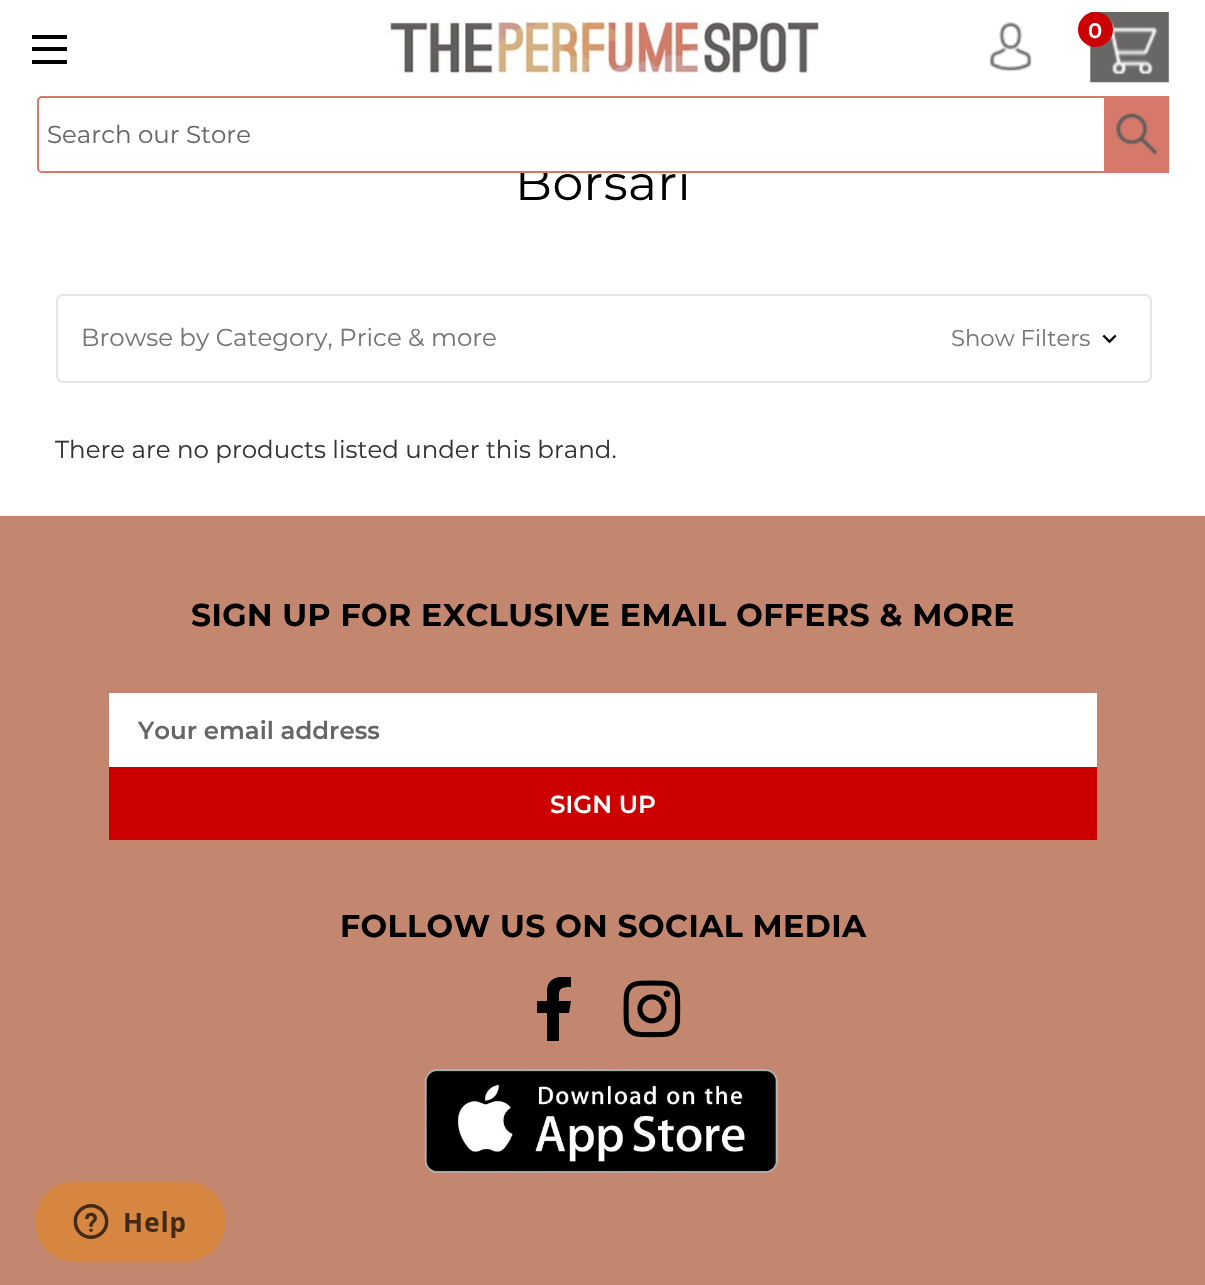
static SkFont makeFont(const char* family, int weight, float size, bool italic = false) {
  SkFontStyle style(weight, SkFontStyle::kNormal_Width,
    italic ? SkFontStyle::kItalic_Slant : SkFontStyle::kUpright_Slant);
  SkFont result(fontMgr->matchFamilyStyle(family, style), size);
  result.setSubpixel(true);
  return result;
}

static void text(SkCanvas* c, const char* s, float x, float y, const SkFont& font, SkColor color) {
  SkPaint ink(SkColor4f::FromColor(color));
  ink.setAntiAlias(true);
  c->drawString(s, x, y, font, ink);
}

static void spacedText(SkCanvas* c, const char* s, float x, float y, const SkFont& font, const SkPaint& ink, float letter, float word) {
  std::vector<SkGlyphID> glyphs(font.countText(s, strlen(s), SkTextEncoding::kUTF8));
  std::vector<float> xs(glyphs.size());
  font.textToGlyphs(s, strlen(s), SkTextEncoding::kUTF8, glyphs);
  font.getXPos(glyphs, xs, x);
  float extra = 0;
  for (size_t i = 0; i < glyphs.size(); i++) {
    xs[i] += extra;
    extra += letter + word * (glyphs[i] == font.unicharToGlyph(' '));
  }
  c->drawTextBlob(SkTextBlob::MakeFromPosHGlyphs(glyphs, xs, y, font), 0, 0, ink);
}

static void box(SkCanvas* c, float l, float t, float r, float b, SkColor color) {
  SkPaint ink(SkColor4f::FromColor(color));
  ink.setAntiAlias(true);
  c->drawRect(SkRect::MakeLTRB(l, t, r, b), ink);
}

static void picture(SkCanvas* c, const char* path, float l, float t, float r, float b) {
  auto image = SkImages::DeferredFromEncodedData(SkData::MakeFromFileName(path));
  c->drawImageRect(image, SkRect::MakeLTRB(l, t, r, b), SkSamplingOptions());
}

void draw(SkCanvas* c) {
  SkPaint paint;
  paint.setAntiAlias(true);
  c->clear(0xffffffff);
  picture(c, "img_01.png", 385, 21, 820, 74);
  picture(c, "img_02.png", 990, 22, 1032, 72);
  picture(c, "img_03.png", 1090, 12, 1169, 83);
  paint.setColor(0xffcc0000);
  c->drawCircle(1095.5f, 29.5f, 17.5f, paint);
  SkFont face1 = makeFont("Montserrat", 600, 21);
  text(c, "0", 1088, 38, face1, 0xffffffff);
  SkFont face2 = makeFont("Montserrat", 100, 49);
  paint.setColor(0xff000000);
  spacedText(c, "Borsari", 515, 200, face2, paint, 0.45f, 0);
  box(c, 520, 163, 687, 173, 0xffffffff);
  paint.setStyle(SkPaint::kStroke_Style);
  paint.setStrokeWidth(2);
  paint.setColor(0xffd6796a);
  c->drawRoundRect(SkRect::MakeLTRB(38, 97, 1168, 172), 4, 4, paint);
  SkFont face3 = makeFont("Montserrat", 100, 24.5f);
  text(c, "Search our Store", 47, 143, face3, 0xff666666);
  box(c, 1104, 96, 1169, 173, 0xffd6796a);
  picture(c, "img_04.png", 1116, 113, 1157, 155);
  box(c, 32, 47, 67, 51, 0xff000000);
  box(c, 32, 35, 67, 39, 0xff000000);
  box(c, 32, 60, 67, 64, 0xff000000);
  paint.setColor(0xffe5e5e5);
  c->drawRoundRect(SkRect::MakeLTRB(57, 295, 1151, 382), 6, 6, paint);
  text(c, "Browse by Category, Price & more", 81, 346, face3, 0xff757575);
  SkFont face4 = makeFont("Montserrat", 100, 22.75f);
  text(c, "Show Filters", 951, 346, face4, 0xff757575);
  picture(c, "img_05.png", 1102, 334, 1117, 344);
  text(c, "There are no products listed under this brand.", 55, 458, face3, 0xff333333);
  box(c, 0, 516, 1205, 1285, 0xffc3876f);
  SkFont face5 = makeFont("Montserrat", 700, 31.5f);
  paint.setStyle(SkPaint::kFill_Style);
  paint.setColor(0xff000000);
  spacedText(c, "SIGN UP FOR EXCLUSIVE EMAIL OFFERS & MORE", 191, 626, face5, paint, 0.45f, 0);
  box(c, 109, 693, 1097, 767, 0xffffffff);
  SkFont face6 = makeFont("Montserrat", 600, 24.5f);
  text(c, "Your email address", 138, 739, face6, 0xff666666);
  box(c, 109, 767, 1097, 840, 0xffcc0000);
  text(c, "SIGN UP", 550, 813, face6, 0xffffffff);
  spacedText(c, "FOLLOW US ON SOCIAL MEDIA", 340, 937, face5, paint, 0.45f, 0);
  c->save();
  c->clipRect(SkRect::MakeLTRB(522, 977, 586, 1041));
  c->drawPath(SkPathBuilder().moveTo(569, 1013).lineTo(571, 1001).lineTo(559, 1001).cubicTo(559, 990, 558, 987, 571, 987).lineTo(571, 977).cubicTo(561, 976, 549, 976, 547, 989).lineTo(547, 1001).lineTo(537, 1001).lineTo(537, 1013).lineTo(547, 1013).lineTo(547, 1041).lineTo(559, 1041).lineTo(559, 1013).close().detach(), paint);
  c->restore();
  picture(c, "img_06.png", 623, 980, 681, 1038);
  picture(c, "img_07.png", 424, 1069, 778, 1173);
  picture(c, "img_08.png", 35, 1181, 226, 1262);
}
